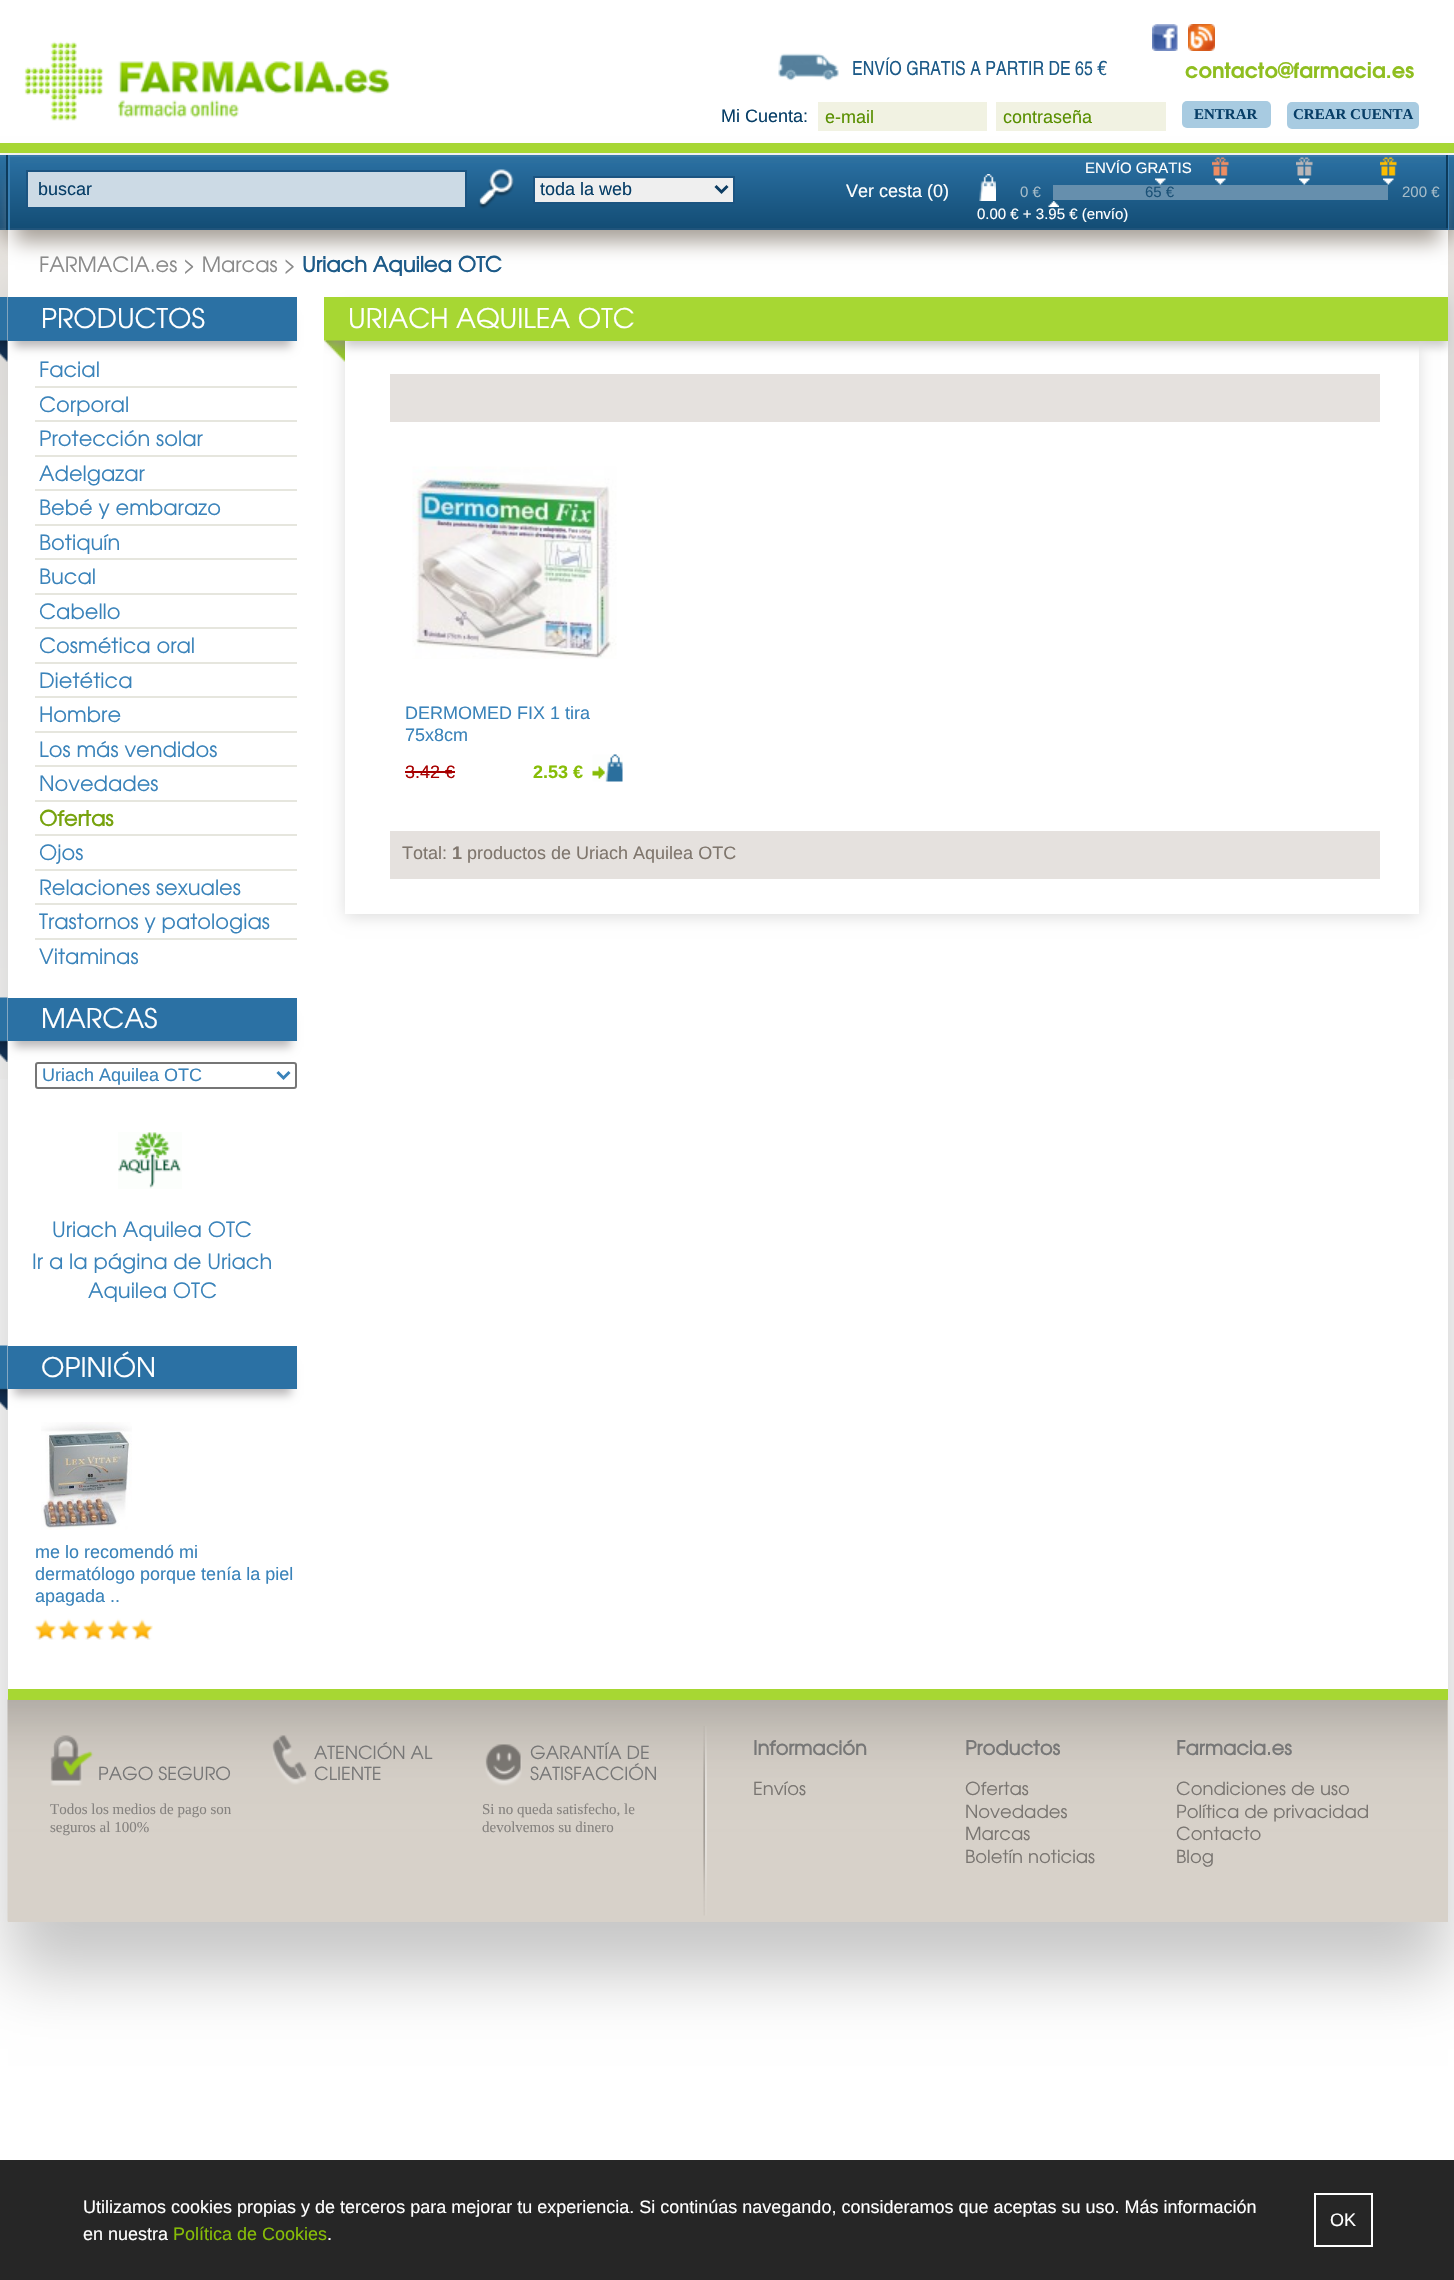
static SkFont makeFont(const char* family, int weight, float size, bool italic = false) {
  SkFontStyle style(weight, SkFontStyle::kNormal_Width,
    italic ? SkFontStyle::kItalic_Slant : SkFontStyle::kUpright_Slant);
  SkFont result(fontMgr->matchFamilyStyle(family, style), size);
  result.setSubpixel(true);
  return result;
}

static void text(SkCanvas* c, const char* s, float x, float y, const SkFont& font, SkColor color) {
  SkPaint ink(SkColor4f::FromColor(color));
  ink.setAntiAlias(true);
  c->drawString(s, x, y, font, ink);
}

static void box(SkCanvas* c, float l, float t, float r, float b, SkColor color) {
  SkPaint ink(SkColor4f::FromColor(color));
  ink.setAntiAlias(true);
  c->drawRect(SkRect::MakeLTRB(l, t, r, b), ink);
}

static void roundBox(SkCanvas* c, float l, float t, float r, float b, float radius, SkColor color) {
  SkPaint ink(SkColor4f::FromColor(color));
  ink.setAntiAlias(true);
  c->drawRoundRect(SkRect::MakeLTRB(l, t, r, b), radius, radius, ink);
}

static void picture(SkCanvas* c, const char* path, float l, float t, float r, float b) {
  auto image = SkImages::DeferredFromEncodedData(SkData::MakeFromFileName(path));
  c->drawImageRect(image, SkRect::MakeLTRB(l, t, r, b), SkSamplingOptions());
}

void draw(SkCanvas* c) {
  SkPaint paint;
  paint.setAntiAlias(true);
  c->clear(0xffffffff);
  picture(c, "img_01.png", 1152, 24, 1178, 51);
  picture(c, "img_02.png", 1188, 24, 1215, 51);
  picture(c, "img_03.png", 24, 41, 390, 121);
  picture(c, "img_04.png", 778, 53, 839, 81);
  SkFont face1 = makeFont("TeX Gyre Heros Cn", 400, 19.5f);
  text(c, "ENVÍO GRATIS A PARTIR DE 65 €", 852, 75, face1, 0xff1c5a88);
  SkFont face2 = makeFont("TeX Gyre Adventor", 700, 21);
  text(c, "contacto@farmacia.es", 1185, 78, face2, 0xff8fbe20);
  SkFont face3 = makeFont("Liberation Sans", 400, 18);
  text(c, "Mi Cuenta:", 721, 122, face3, 0xff073e67);
  box(c, 818, 102, 987, 131, 0xfff1f2e2);
  text(c, "e-mail", 825, 123, face3, 0xff598f00);
  box(c, 996, 102, 1166, 131, 0xfff1f2e2);
  text(c, "contraseña", 1003, 123, face3, 0xff598f00);
  roundBox(c, 1182, 101, 1271, 128, 5, 0xffa8cbe1);
  SkFont face4 = makeFont("Liberation Serif", 700, 15);
  text(c, "ENTRAR", 1194, 119, face4, 0xff073e67);
  roundBox(c, 1287, 102, 1419, 129, 5, 0xffa8cbe1);
  text(c, "CREAR CUENTA", 1293, 119, face4, 0xff073e67);
  box(c, 0, 143, 1454, 153, 0xffa7d733);
  picture(c, "img_27.png", 0, 230, 1454, 1079);
  paint.setColor(0xffa8a199);
  paint.setMaskFilter(SkMaskFilter::MakeBlur(kNormal_SkBlurStyle, 9.5f));
  c->drawRect(SkRect::MakeLTRB(0, 164, 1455, 239), paint);
  paint.setMaskFilter(nullptr);
  box(c, 8, 145, 1448, 153, 0xffa7d733);
  {
    const SkColor colors[] = {0xff2b71a2, 0xff154b75};
    const float stops[] = {0, 1};
    const SkPoint ends[] = {{728, 156}, {728, 228}};
    paint.setShader(SkGradientShader::MakeLinear(ends, colors, stops, 2, SkTileMode::kClamp));
    paint.setAlpha(255);
  }
  c->drawRect(SkRect::MakeLTRB(0, 157, 1454, 228), paint);
  box(c, 0, 228, 1454, 230, 0xff1f537a);
  paint.setShader(nullptr);
  paint.setColor(0xffc7c7c7);
  paint.setMaskFilter(SkMaskFilter::MakeBlur(kNormal_SkBlurStyle, 31));
  c->drawRect(SkRect::MakeLTRB(8, 279, 1448, 1974), paint);
  paint.setMaskFilter(nullptr);
  box(c, 8, 230, 1448, 1689, 0xffffffff);
  box(c, 0, 155, 1454, 157, 0xff3577a7);
  paint.setColor(0xffa8a199);
  paint.setMaskFilter(SkMaskFilter::MakeBlur(kNormal_SkBlurStyle, 9.5f));
  c->drawRect(SkRect::MakeLTRB(15, 182, 1440, 242), paint);
  paint.setMaskFilter(nullptr);
  paint.setColor(0xff387fb3);
  c->drawPath(SkPathBuilder().moveTo(9, 230).lineTo(1449, 230).lineTo(1449, 155).lineTo(1448, 155).lineTo(1448, 230).close().detach(), paint);
  paint.setColor(0xff0d3b5c);
  c->drawPath(SkPathBuilder().moveTo(6, 155).lineTo(6, 230).lineTo(1446, 230).lineTo(8, 230).lineTo(8, 155).close().detach(), paint);
  {
    const SkColor colors[] = {0xff2b71a4, 0xff134d75};
    const float stops[] = {0, 1};
    const SkPoint ends[] = {{728, 156}, {728, 228}};
    paint.setShader(SkGradientShader::MakeLinear(ends, colors, stops, 2, SkTileMode::kClamp));
    paint.setAlpha(255);
  }
  c->drawRect(SkRect::MakeLTRB(10, 163, 1446, 228), paint);
  box(c, 8, 155, 1448, 157, 0xff3979a9);
  box(c, 1446, 155, 1448, 230, 0xff0d3b5c);
  box(c, 8, 228, 1448, 230, 0xff20547b);
  box(c, 8, 155, 10, 230, 0xff387fb3);
  paint.setShader(nullptr);
  paint.setColor(0xffccdae5);
  c->drawRect(SkRect::MakeLTRB(27, 171, 466, 208), paint);
  paint.setStyle(SkPaint::kStroke_Style);
  paint.setStrokeWidth(2);
  paint.setColor(0xff1b5481);
  c->drawRect(SkRect::MakeLTRB(27, 171, 466, 208), paint);
  text(c, "buscar", 38, 195, face3, 0xff073e67);
  picture(c, "img_05.png", 478, 169, 514, 209);
  paint.setStyle(SkPaint::kFill_Style);
  paint.setColor(0xffefefef);
  c->drawRect(SkRect::MakeLTRB(534, 177, 734, 203), paint);
  paint.setStyle(SkPaint::kStroke_Style);
  paint.setColor(0xff1b5481);
  c->drawRect(SkRect::MakeLTRB(534, 177, 734, 203), paint);
  paint.setStrokeWidth(3);
  paint.setColor(0xff0c3c62);
  c->drawPath(SkPathBuilder().moveTo(715.5f, 186).lineTo(721.5f, 192).lineTo(727.5f, 186).detach(), paint);
  text(c, "toda la web", 540, 195, face3, 0xff073e67);
  picture(c, "img_06.png", 979, 174, 996, 201);
  text(c, "Ver cesta (0)", 846, 197, face3, 0xffffffff);
  SkFont face5 = makeFont("Liberation Sans", 400, 15);
  text(c, "ENVÍO GRATIS", 1085, 173, face5, 0xffffffff);
  picture(c, "img_07.png", 1212, 157, 1229, 176);
  picture(c, "img_08.png", 1296, 157, 1313, 176);
  picture(c, "img_09.png", 1380, 157, 1397, 176);
  picture(c, "img_10.png", 1155, 178, 1166, 185);
  picture(c, "img_10.png", 1215, 178, 1226, 185);
  picture(c, "img_11.png", 1299, 178, 1310, 185);
  picture(c, "img_11.png", 1383, 178, 1394, 185);
  box(c, 1053, 185, 1388, 200, 0xff668fad);
  text(c, "65 €", 1145, 197, face5, 0xff1b5177);
  picture(c, "img_12.png", 1048, 201, 1059, 207);
  text(c, "0.00 € + 3.95 € (envío)", 977, 219, face5, 0xffffffff);
  text(c, "0 €", 1020, 197, face5, 0xffa5bbc8);
  text(c, "200 €", 1402, 197, face5, 0xffa5bbc8);
  SkFont face6 = makeFont("TeX Gyre Adventor", 400, 21);
  text(c, "FARMACIA.es > Marcas >", 39, 272, face6, 0xff8a8a8a);
  SkFont face7 = makeFont("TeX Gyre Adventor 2", 700, 21);
  text(c, "Uriach Aquilea OTC", 302, 272, face7, 0xff1c5a88);
  paint.setStyle(SkPaint::kFill_Style);
  paint.setColor(0xffbab8b9);
  paint.setMaskFilter(SkMaskFilter::MakeBlur(kNormal_SkBlurStyle, 4.5f));
  c->drawRect(SkRect::MakeLTRB(14, 315, 291, 347), paint);
  paint.setMaskFilter(nullptr);
  box(c, 8, 297, 297, 341, 0xff2b71a4);
  picture(c, "img_13.png", 0, 297, 8, 362);
  SkFont face8 = makeFont("TeX Gyre Adventor", 400, 27);
  text(c, "PRODUCTOS", 41, 328, face8, 0xffffffff);
  text(c, "Facial", 39, 377, face6, 0xff3a83ba);
  box(c, 35, 386, 297, 388, 0xffe6e6de);
  text(c, "Corporal", 39, 412, face6, 0xff3a83ba);
  box(c, 35, 420, 297, 422, 0xffe6e6de);
  text(c, "Protección solar", 39, 446, face6, 0xff3a83ba);
  box(c, 35, 455, 297, 457, 0xffe6e6de);
  text(c, "Adelgazar", 39, 481, face6, 0xff3a83ba);
  box(c, 35, 489, 297, 491, 0xffe6e6de);
  text(c, "Bebé y embarazo", 39, 515, face6, 0xff3a83ba);
  box(c, 35, 524, 297, 526, 0xffe6e6de);
  text(c, "Botiquín", 39, 550, face6, 0xff3a83ba);
  box(c, 35, 558, 297, 560, 0xffe6e6de);
  text(c, "Bucal", 39, 584, face6, 0xff3a83ba);
  box(c, 35, 593, 297, 595, 0xffe6e6de);
  text(c, "Cabello", 39, 619, face6, 0xff3a83ba);
  box(c, 35, 627, 297, 629, 0xffe6e6de);
  text(c, "Cosmética oral", 39, 653, face6, 0xff3a83ba);
  box(c, 35, 662, 297, 664, 0xffe6e6de);
  text(c, "Dietética", 39, 688, face6, 0xff3a83ba);
  box(c, 35, 696, 297, 698, 0xffe6e6de);
  text(c, "Hombre", 39, 722, face6, 0xff3a83ba);
  box(c, 35, 731, 297, 733, 0xffe6e6de);
  text(c, "Los más vendidos", 39, 757, face6, 0xff3a83ba);
  box(c, 35, 765, 297, 767, 0xffe6e6de);
  text(c, "Novedades", 39, 791, face6, 0xff3a83ba);
  box(c, 35, 800, 297, 802, 0xffe6e6de);
  text(c, "Ofertas", 39, 826, face7, 0xff77a30e);
  box(c, 35, 834, 297, 836, 0xffe6e6de);
  text(c, "Ojos", 39, 860, face6, 0xff3a83ba);
  box(c, 35, 869, 297, 871, 0xffe6e6de);
  text(c, "Relaciones sexuales", 39, 895, face6, 0xff3a83ba);
  box(c, 35, 903, 297, 905, 0xffe6e6de);
  text(c, "Trastornos y patologias", 39, 929, face6, 0xff3a83ba);
  box(c, 35, 938, 297, 940, 0xffe6e6de);
  text(c, "Vitaminas", 39, 964, face6, 0xff3a83ba);
  paint.setMaskFilter(SkMaskFilter::MakeBlur(kNormal_SkBlurStyle, 4.5f));
  c->drawRect(SkRect::MakeLTRB(14, 1016, 291, 1047), paint);
  paint.setMaskFilter(nullptr);
  box(c, 8, 998, 297, 1041, 0xff2b71a4);
  picture(c, "img_14.png", 0, 997, 8, 1062);
  text(c, "MARCAS", 41, 1028, face8, 0xffffffff);
  paint.setStyle(SkPaint::kStroke_Style);
  paint.setStrokeWidth(2);
  paint.setColor(0xff767676);
  c->drawRoundRect(SkRect::MakeLTRB(36, 1063, 296, 1088), 2, 2, paint);
  paint.setStrokeWidth(3);
  paint.setColor(0xff3a83ba);
  c->drawPath(SkPathBuilder().moveTo(277.5f, 1072).lineTo(283.5f, 1078).lineTo(289.5f, 1072).detach(), paint);
  text(c, "Uriach Aquilea OTC", 42, 1081, face3, 0xff3a83ba);
  picture(c, "img_15.png", 118, 1132, 182, 1189);
  text(c, "Uriach Aquilea OTC", 52, 1237, face6, 0xff3a83ba);
  text(c, "Ir a la página de Uriach", 32, 1269, face6, 0xff3a83ba);
  text(c, "Aquilea OTC", 88, 1298, face6, 0xff3a83ba);
  paint.setStyle(SkPaint::kFill_Style);
  paint.setColor(0xffbab8b9);
  paint.setMaskFilter(SkMaskFilter::MakeBlur(kNormal_SkBlurStyle, 4.5f));
  c->drawRect(SkRect::MakeLTRB(14, 1364, 291, 1395), paint);
  paint.setMaskFilter(nullptr);
  box(c, 8, 1346, 297, 1389, 0xff2b71a4);
  picture(c, "img_16.png", 0, 1345, 8, 1410);
  text(c, "OPINIÓN", 41, 1377, face8, 0xffffffff);
  picture(c, "img_17.png", 41, 1422, 132, 1530);
  text(c, "me lo recomendó mi", 35, 1558, face3, 0xff3a83ba);
  text(c, "dermatólogo porque tenía la piel", 35, 1580, face3, 0xff3a83ba);
  text(c, "apagada ..", 35, 1602, face3, 0xff3a83ba);
  picture(c, "img_18.png", 34, 1618, 153, 1640);
  paint.setColor(0xffcccccc);
  paint.setMaskFilter(SkMaskFilter::MakeBlur(kNormal_SkBlurStyle, 4.5f));
  c->drawRect(SkRect::MakeLTRB(345, 303, 1448, 347), paint);
  paint.setMaskFilter(nullptr);
  c->save();
  c->clipPath(SkPathBuilder(SkPathFillType::kEvenOdd).moveTo(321, 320).lineTo(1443, 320).lineTo(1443, 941).lineTo(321, 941).close().moveTo(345, 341).lineTo(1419, 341).lineTo(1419, 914).lineTo(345, 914).close().detach(), true);
  paint.setColor(0xffdddddd);
  paint.setMaskFilter(SkMaskFilter::MakeBlur(kNormal_SkBlurStyle, 7.5f));
  c->drawRect(SkRect::MakeLTRB(345, 344, 1419, 917), paint);
  paint.setMaskFilter(nullptr);
  c->restore();
  box(c, 345, 297, 1448, 341, 0xffa7d733);
  picture(c, "img_19.png", 324, 297, 345, 362);
  text(c, "URIACH AQUILEA OTC", 348, 328, face8, 0xffffffff);
  box(c, 390, 374, 1380, 422, 0xffe5e1de);
  picture(c, "img_20.png", 412, 466, 617, 659);
  text(c, "DERMOMED FIX 1 tira", 405, 719, face3, 0xff3a83ba);
  text(c, "75x8cm", 405, 741, face3, 0xff3a83ba);
  text(c, "3.42 €", 405, 778, face3, 0xffa70000);
  box(c, 405, 771, 455, 773, 0xffa70000);
  SkFont face9 = makeFont("Liberation Sans", 700, 18);
  text(c, "2.53 €", 533, 778, face9, 0xff87bd07);
  picture(c, "img_21.png", 592, 754, 623, 782);
  box(c, 390, 831, 1380, 879, 0xffe5e1de);
  text(c, "Total:", 402, 859, face3, 0xff7f766d);
  text(c, "1", 452, 859, face9, 0xff7f766d);
  text(c, "productos de Uriach Aquilea OTC", 467, 859, face3, 0xff7f766d);
  box(c, 8, 1700, 1448, 1922, 0xffd7d1c9);
  picture(c, "img_22.png", 7, 1699, 1448, 1922);
  box(c, 8, 1689, 1448, 1700, 0xffa7d733);
  picture(c, "img_23.png", 50, 1735, 94, 1786);
  SkFont face10 = makeFont("TeX Gyre Adventor", 400, 18);
  text(c, "PAGO SEGURO", 98, 1780, face10, 0xff777777);
  SkFont face11 = makeFont("Liberation Serif", 400, 15);
  text(c, "Todos los medios de pago son", 50, 1814, face11, 0xff85827f);
  text(c, "seguros al 100%", 50, 1832, face11, 0xff85827f);
  picture(c, "img_24.png", 272, 1735, 307, 1785);
  text(c, "ATENCIÓN AL", 314, 1759, face10, 0xff777777);
  text(c, "CLIENTE", 314, 1780, face10, 0xff777777);
  picture(c, "img_25.png", 485, 1744, 522, 1786);
  text(c, "GARANTÍA DE", 530, 1759, face10, 0xff777777);
  text(c, "SATISFACCIÓN", 530, 1780, face10, 0xff777777);
  text(c, "Si no queda satisfecho, le", 482, 1814, face11, 0xff85827f);
  text(c, "devolvemos su dinero", 482, 1832, face11, 0xff85827f);
  picture(c, "img_26.png", 703, 1726, 707, 1916);
  SkFont face12 = makeFont("TeX Gyre Adventor 2", 700, 19.5f);
  text(c, "Información", 753, 1755, face12, 0xff777777);
  text(c, "Envíos", 753, 1795, face10, 0xff797571);
  text(c, "Productos", 965, 1755, face12, 0xff777777);
  text(c, "Ofertas", 965, 1795, face10, 0xff797571);
  text(c, "Novedades", 965, 1818, face10, 0xff797571);
  text(c, "Marcas", 965, 1840, face10, 0xff797571);
  text(c, "Boletín noticias", 965, 1863, face10, 0xff797571);
  text(c, "Farmacia.es", 1176, 1755, face12, 0xff777777);
  text(c, "Condiciones de uso", 1176, 1795, face10, 0xff797571);
  text(c, "Política de privacidad", 1176, 1818, face10, 0xff797571);
  text(c, "Contacto", 1176, 1840, face10, 0xff797571);
  text(c, "Blog", 1176, 1863, face10, 0xff797571);
  box(c, 0, 2160, 1454, 2280, 0xff262626);
  text(c, "Utilizamos cookies propias y de terceros para mejorar tu experiencia. Si continúas navegando, consideramos que aceptas su uso. Más información", 83, 2213, face3, 0xffffffff);
  text(c, "en nuestra", 83, 2240, face3, 0xffffffff);
  text(c, "Política de Cookies", 173, 2240, face3, 0xff87bd07);
  text(c, ".", 327, 2240, face3, 0xffffffff);
  paint.setStyle(SkPaint::kStroke_Style);
  paint.setStrokeWidth(2);
  paint.setColor(0xffffffff);
  c->drawRect(SkRect::MakeLTRB(1315, 2194, 1372, 2246), paint);
  text(c, "OK", 1330, 2226, face3, 0xffffffff);
}
